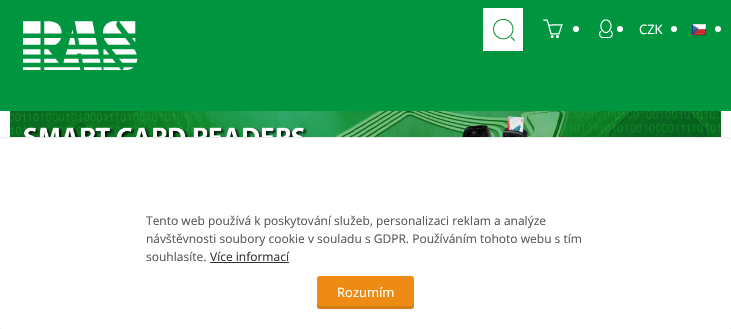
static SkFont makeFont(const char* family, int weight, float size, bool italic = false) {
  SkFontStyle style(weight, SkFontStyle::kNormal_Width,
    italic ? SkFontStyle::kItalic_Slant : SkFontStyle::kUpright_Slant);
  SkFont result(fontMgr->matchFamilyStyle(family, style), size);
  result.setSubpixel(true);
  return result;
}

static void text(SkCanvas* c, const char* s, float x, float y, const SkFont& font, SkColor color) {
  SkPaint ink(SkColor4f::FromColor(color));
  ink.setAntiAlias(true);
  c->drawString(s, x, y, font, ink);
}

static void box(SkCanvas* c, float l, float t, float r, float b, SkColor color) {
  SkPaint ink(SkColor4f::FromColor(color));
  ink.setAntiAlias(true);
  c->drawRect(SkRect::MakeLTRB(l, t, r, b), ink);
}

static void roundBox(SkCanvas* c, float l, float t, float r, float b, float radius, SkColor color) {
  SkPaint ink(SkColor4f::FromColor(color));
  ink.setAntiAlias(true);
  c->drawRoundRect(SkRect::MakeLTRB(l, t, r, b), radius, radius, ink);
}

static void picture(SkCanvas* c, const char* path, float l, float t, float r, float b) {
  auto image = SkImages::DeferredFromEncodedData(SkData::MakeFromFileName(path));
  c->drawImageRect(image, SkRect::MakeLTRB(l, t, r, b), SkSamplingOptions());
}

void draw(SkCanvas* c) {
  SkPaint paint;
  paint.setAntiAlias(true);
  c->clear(0xffffffff);
  box(c, 0, 0, 731, 111, 0xff009640);
  picture(c, "img_01.png", 23, 21, 138, 70);
  box(c, 483, 8, 523, 51, 0xffffffff);
  picture(c, "img_02.png", 493, 19, 515, 41);
  picture(c, "img_03.png", 543, 19, 563, 38);
  paint.setColor(0xffffffff);
  c->drawCircle(576, 29, 3, paint);
  picture(c, "img_04.png", 599, 19, 613, 38);
  c->drawCircle(620, 29, 3, paint);
  SkFont face1 = makeFont("Open Sans", 400, 13);
  text(c, "CZK", 639, 34, face1, 0xffffffff);
  c->drawCircle(674, 29, 3, paint);
  picture(c, "img_05.png", 691, 24, 707, 37);
  c->drawCircle(718, 29, 3, paint);
  picture(c, "img_06.png", 10, 111, 721, 137);
  paint.setStyle(SkPaint::kStroke_Style);
  paint.setStrokeWidth(1);
  paint.setColor(0xffebebeb);
  c->drawRoundRect(SkRect::MakeLTRB(-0.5f, 137.5f, 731.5f, 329.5f), 2.5f, 2.5f, paint);
  SkFont face2 = makeFont("Open Sans", 400, 12);
  text(c, "Tento web používá k poskytování služeb, personalizaci reklam a analýze", 146, 225, face2, 0xff585858);
  text(c, "návštěvnosti soubory cookie v souladu s GDPR. Používáním tohoto webu s tím", 146, 243, face2, 0xff585858);
  text(c, "souhlasíte.", 146, 261, face2, 0xff585858);
  text(c, "Více informací", 210, 261, face2, 0xff333333);
  box(c, 210, 262, 289, 263, 0xff333333);
  roundBox(c, 317, 276, 414, 309, 3, 0xffee8b15);
  paint.setStyle(SkPaint::kFill_Style);
  paint.setColor(0x1a000000);
  c->drawPath(SkPathBuilder().moveTo(317, 303).lineTo(317, 306).cubicTo(317, 308, 318, 309, 320, 309).lineTo(411, 309).cubicTo(413, 309, 414, 308, 414, 306).lineTo(414, 303).cubicTo(414, 305, 413, 306, 411, 306).lineTo(320, 306).cubicTo(318, 306, 317, 305, 317, 303).close().detach(), paint);
  text(c, "Rozumím", 337, 297, face1, 0xffffffff);
}
